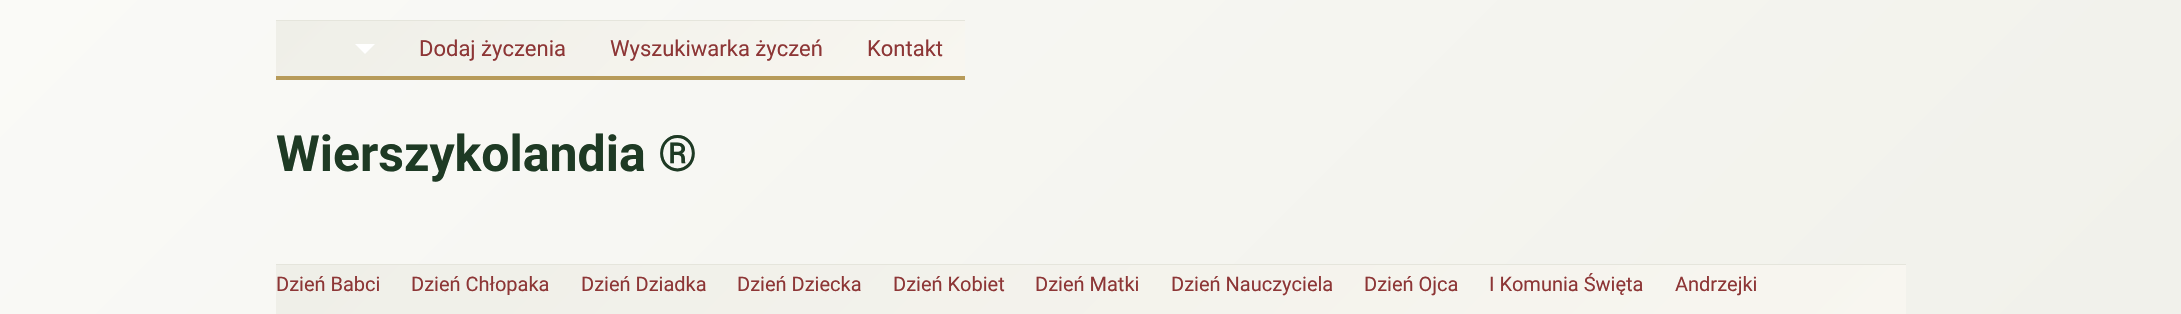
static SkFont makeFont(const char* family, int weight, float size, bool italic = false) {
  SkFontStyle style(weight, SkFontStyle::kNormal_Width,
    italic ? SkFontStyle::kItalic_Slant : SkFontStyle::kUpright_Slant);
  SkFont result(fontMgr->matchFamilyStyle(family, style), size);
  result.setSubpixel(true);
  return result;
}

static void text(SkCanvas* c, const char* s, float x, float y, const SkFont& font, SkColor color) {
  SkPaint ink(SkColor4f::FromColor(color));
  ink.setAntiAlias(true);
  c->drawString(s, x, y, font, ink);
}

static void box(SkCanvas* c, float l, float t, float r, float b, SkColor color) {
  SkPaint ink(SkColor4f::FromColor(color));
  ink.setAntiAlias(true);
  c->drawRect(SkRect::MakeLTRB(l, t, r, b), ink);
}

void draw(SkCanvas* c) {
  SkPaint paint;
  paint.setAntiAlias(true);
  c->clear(0xffffffff);
  {
    const SkColor colors[] = {0xfffafaf7, 0xffefefe8};
    const float stops[] = {0, 1};
    const SkPoint ends[] = {{343, -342}, {1839, 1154}};
    paint.setShader(SkGradientShader::MakeLinear(ends, colors, stops, 2, SkTileMode::kClamp));
    paint.setAlpha(255);
  }
  c->drawRect(SkRect::MakeLTRB(0, 0, 2181, 314), paint);
  {
    const SkColor colors[] = {0xffefefe8, 0xfff8f6f0};
    const float stops[] = {0, 1};
    const SkPoint ends[] = {{435, -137}, {807, 235}};
    paint.setShader(SkGradientShader::MakeLinear(ends, colors, stops, 2, SkTileMode::kClamp));
    paint.setAlpha(255);
  }
  c->drawRect(SkRect::MakeLTRB(276, 21, 965, 76), paint);
  box(c, 276, 20, 965, 21, 0xffe5e5dc);
  box(c, 276, 76, 965, 80, 0xffb79b5a);
  paint.setShader(nullptr);
  paint.setColor(0xffffffff);
  c->drawPath(SkPathBuilder().moveTo(355, 44).lineTo(375, 44).lineTo(365, 54).close().detach(), paint);
  SkFont face1 = makeFont("Roboto", 400, 22);
  text(c, "Dodaj życzenia", 419, 56, face1, 0xff8d3636);
  text(c, "Wyszukiwarka życzeń", 610, 56, face1, 0xff8d3636);
  text(c, "Kontakt", 867, 56, face1, 0xff8d3636);
  SkFont face2 = makeFont("Roboto", 700, 50);
  text(c, "Wierszykolandia ®", 276, 171, face2, 0xff1e3a24);
  {
    const SkColor colors[] = {0xffefefe8, 0xfff8f6f0};
    const float stops[] = {0, 1};
    const SkPoint ends[] = {{664, -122}, {1519, 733}};
    paint.setShader(SkGradientShader::MakeLinear(ends, colors, stops, 2, SkTileMode::kClamp));
    paint.setAlpha(255);
  }
  c->drawRect(SkRect::MakeLTRB(276, 265, 1906, 314), paint);
  box(c, 276, 264, 1906, 265, 0xffe5e5dc);
  SkFont face3 = makeFont("Roboto", 400, 20);
  text(c, "Dzień Babci", 276, 291, face3, 0xff8d3636);
  text(c, "Dzień Chłopaka", 411, 291, face3, 0xff8d3636);
  text(c, "Dzień Dziadka", 581, 291, face3, 0xff8d3636);
  text(c, "Dzień Dziecka", 737, 291, face3, 0xff8d3636);
  text(c, "Dzień Kobiet", 893, 291, face3, 0xff8d3636);
  text(c, "Dzień Matki", 1035, 291, face3, 0xff8d3636);
  text(c, "Dzień Nauczyciela", 1171, 291, face3, 0xff8d3636);
  text(c, "Dzień Ojca", 1364, 291, face3, 0xff8d3636);
  text(c, "I Komunia Święta", 1489, 291, face3, 0xff8d3636);
  text(c, "Andrzejki", 1675, 291, face3, 0xff8d3636);
}
